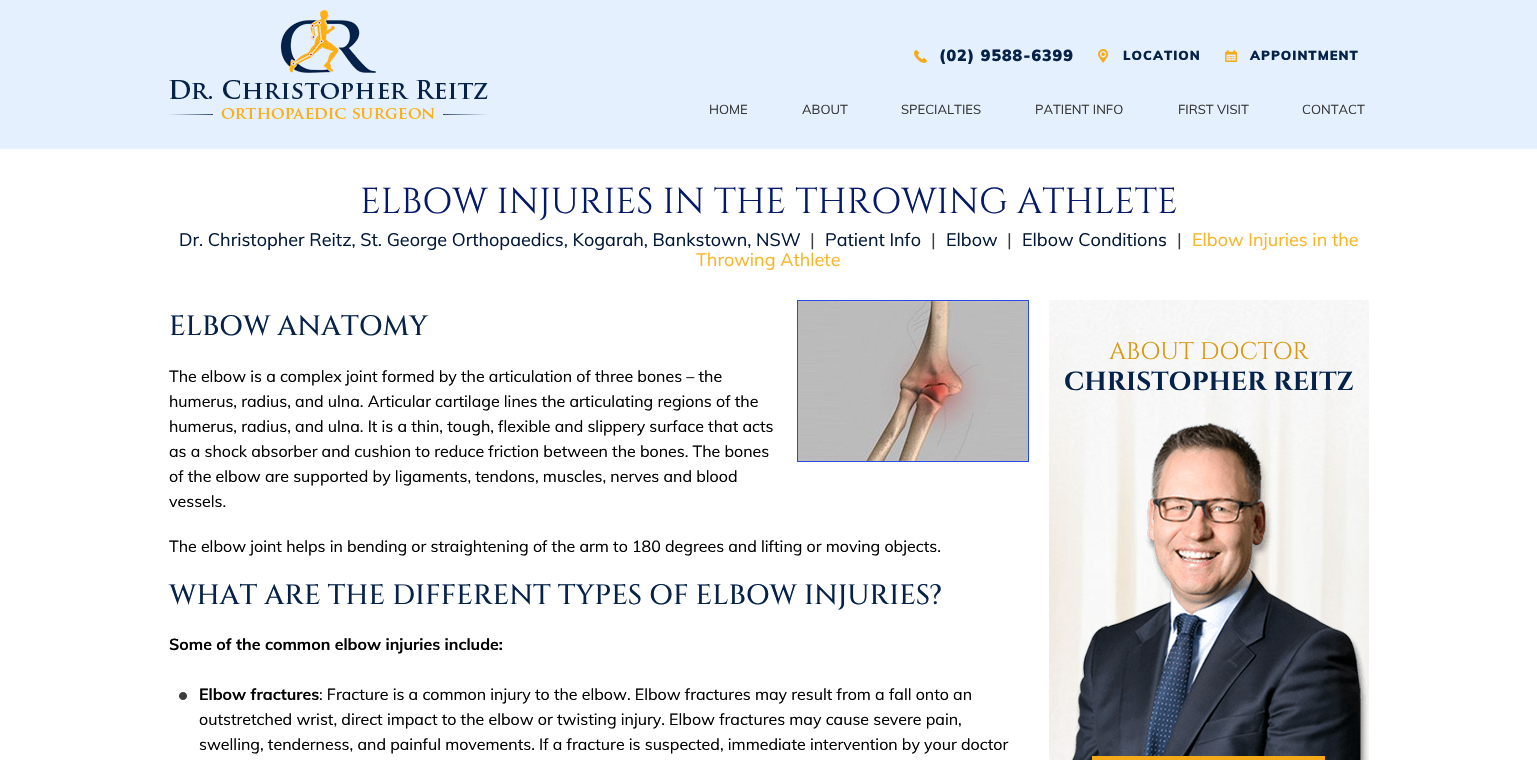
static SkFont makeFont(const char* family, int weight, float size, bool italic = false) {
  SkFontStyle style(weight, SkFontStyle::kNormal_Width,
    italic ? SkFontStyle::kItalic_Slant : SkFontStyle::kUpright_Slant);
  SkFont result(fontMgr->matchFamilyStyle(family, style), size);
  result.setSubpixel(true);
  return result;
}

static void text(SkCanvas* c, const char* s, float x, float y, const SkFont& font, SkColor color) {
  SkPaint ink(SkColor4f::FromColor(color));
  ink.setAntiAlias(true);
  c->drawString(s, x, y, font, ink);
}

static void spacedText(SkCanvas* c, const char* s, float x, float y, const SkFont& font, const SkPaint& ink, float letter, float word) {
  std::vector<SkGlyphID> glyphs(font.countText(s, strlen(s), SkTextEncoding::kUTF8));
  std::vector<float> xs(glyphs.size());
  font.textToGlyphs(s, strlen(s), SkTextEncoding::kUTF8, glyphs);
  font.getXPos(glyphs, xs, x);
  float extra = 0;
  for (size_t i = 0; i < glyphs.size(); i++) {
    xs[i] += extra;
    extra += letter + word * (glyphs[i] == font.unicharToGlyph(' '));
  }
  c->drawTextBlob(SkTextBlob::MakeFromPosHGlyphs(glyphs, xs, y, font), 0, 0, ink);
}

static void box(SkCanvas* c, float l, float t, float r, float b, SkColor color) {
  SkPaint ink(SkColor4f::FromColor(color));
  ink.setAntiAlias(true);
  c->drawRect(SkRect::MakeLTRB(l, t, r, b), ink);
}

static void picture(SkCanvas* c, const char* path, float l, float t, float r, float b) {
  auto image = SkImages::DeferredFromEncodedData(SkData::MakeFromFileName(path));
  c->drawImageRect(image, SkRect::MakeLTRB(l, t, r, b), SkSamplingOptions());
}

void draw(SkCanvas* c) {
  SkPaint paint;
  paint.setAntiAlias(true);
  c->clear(0xffffffff);
  box(c, 0, 0, 1537, 149, 0xffe4f0fd);
  picture(c, "img_01.png", 169, 10, 488, 119);
  picture(c, "img_02.png", 914, 50, 928, 63);
  SkFont face1 = makeFont("Muli", 900, 16);
  paint.setColor(0xff05224b);
  spacedText(c, "(02) 9588-6399", 939, 61, face1, paint, 1, 0);
  picture(c, "img_03.png", 1098, 49, 1109, 63);
  SkFont face2 = makeFont("Muli", 900, 13);
  spacedText(c, "LOCATION", 1123, 60, face2, paint, 1, 0);
  picture(c, "img_04.png", 1225, 50, 1238, 62);
  spacedText(c, "APPOINTMENT", 1250, 60, face2, paint, 1, 0);
  SkFont face3 = makeFont("Muli", 400, 13);
  text(c, "HOME", 709, 114, face3, 0xff363636);
  text(c, "ABOUT", 802, 114, face3, 0xff363636);
  text(c, "SPECIALTIES", 901, 114, face3, 0xff363636);
  text(c, "PATIENT INFO", 1035, 114, face3, 0xff363636);
  text(c, "FIRST VISIT", 1178, 114, face3, 0xff363636);
  text(c, "CONTACT", 1302, 114, face3, 0xff363636);
  SkFont face4 = makeFont("Cinzel", 400, 36);
  text(c, "ELBOW INJURIES IN THE THROWING ATHLETE", 360, 213, face4, 0xff041969);
  SkFont face5 = makeFont("Muli", 400, 18);
  text(c, "Dr. Christopher Reitz, St. George Orthopaedics, Kogarah, Bankstown, NSW", 179, 246, face5, 0xff001738);
  text(c, "|", 810, 246, face5, 0xff3d3d3d);
  text(c, "Patient Info", 825, 246, face5, 0xff001738);
  text(c, "|", 931, 246, face5, 0xff3d3d3d);
  text(c, "Elbow", 946, 246, face5, 0xff001738);
  text(c, "|", 1007, 246, face5, 0xff3d3d3d);
  text(c, "Elbow Conditions", 1022, 246, face5, 0xff001738);
  text(c, "|", 1177, 246, face5, 0xff3d3d3d);
  text(c, "Elbow Injuries in the", 1192, 246, face5, 0xfffbb425);
  text(c, "Throwing Athlete", 696, 266, face5, 0xfffbb425);
  SkFont face6 = makeFont("Cinzel", 500, 28);
  text(c, "ELBOW ANATOMY", 169, 335, face6, 0xff05224b);
  paint.setStyle(SkPaint::kStroke_Style);
  paint.setStrokeWidth(1);
  paint.setColor(0xff244ce5);
  c->drawRect(SkRect::MakeLTRB(797.5f, 300.5f, 1028.5f, 461.5f), paint);
  picture(c, "img_05.png", 798, 301, 1028, 461);
  SkFont face7 = makeFont("Muli", 400, 16);
  text(c, "The elbow is a complex joint formed by the articulation of three bones – the", 169, 382, face7, 0xff000000);
  text(c, "humerus, radius, and ulna. Articular cartilage lines the articulating regions of the", 169, 407, face7, 0xff000000);
  text(c, "humerus, radius, and ulna. It is a thin, tough, flexible and slippery surface that acts", 169, 432, face7, 0xff000000);
  text(c, "as a shock absorber and cushion to reduce friction between the bones. The bones", 169, 457, face7, 0xff000000);
  text(c, "of the elbow are supported by ligaments, tendons, muscles, nerves and blood", 169, 482, face7, 0xff000000);
  text(c, "vessels.", 169, 507, face7, 0xff000000);
  text(c, "The elbow joint helps in bending or straightening of the arm to 180 degrees and lifting or moving objects.", 169, 552, face7, 0xff000000);
  text(c, "WHAT ARE THE DIFFERENT TYPES OF ELBOW INJURIES?", 169, 604, face6, 0xff05224b);
  SkFont face8 = makeFont("Muli", 700, 16);
  text(c, "Some of the common elbow injuries include:", 169, 650, face8, 0xff000000);
  picture(c, "img_06.png", 179, 692, 187, 700);
  text(c, "Elbow fractures", 199, 700, face8, 0xff000000);
  text(c, ": Fracture is a common injury to the elbow. Elbow fractures may result from a fall onto an", 319, 700, face7, 0xff000000);
  text(c, "outstretched wrist, direct impact to the elbow or twisting injury. Elbow fractures may cause severe pain,", 199, 725, face7, 0xff000000);
  text(c, "swelling, tenderness, and painful movements. If a fracture is suspected, immediate intervention by your doctor", 199, 750, face7, 0xff000000);
  picture(c, "img_07.png", 1049, 300, 1369, 760);
  SkFont face9 = makeFont("Cinzel", 400, 24);
  text(c, "ABOUT DOCTOR", 1109, 359, face9, 0xffdd970c);
  SkFont face10 = makeFont("Cinzel", 700, 26);
  text(c, "CHRISTOPHER REITZ", 1064, 390, face10, 0xff05224b);
  picture(c, "img_08.png", 1071, 423, 1368, 760);
  box(c, 1092, 756, 1325, 760, 0xfff5ab19);
}
